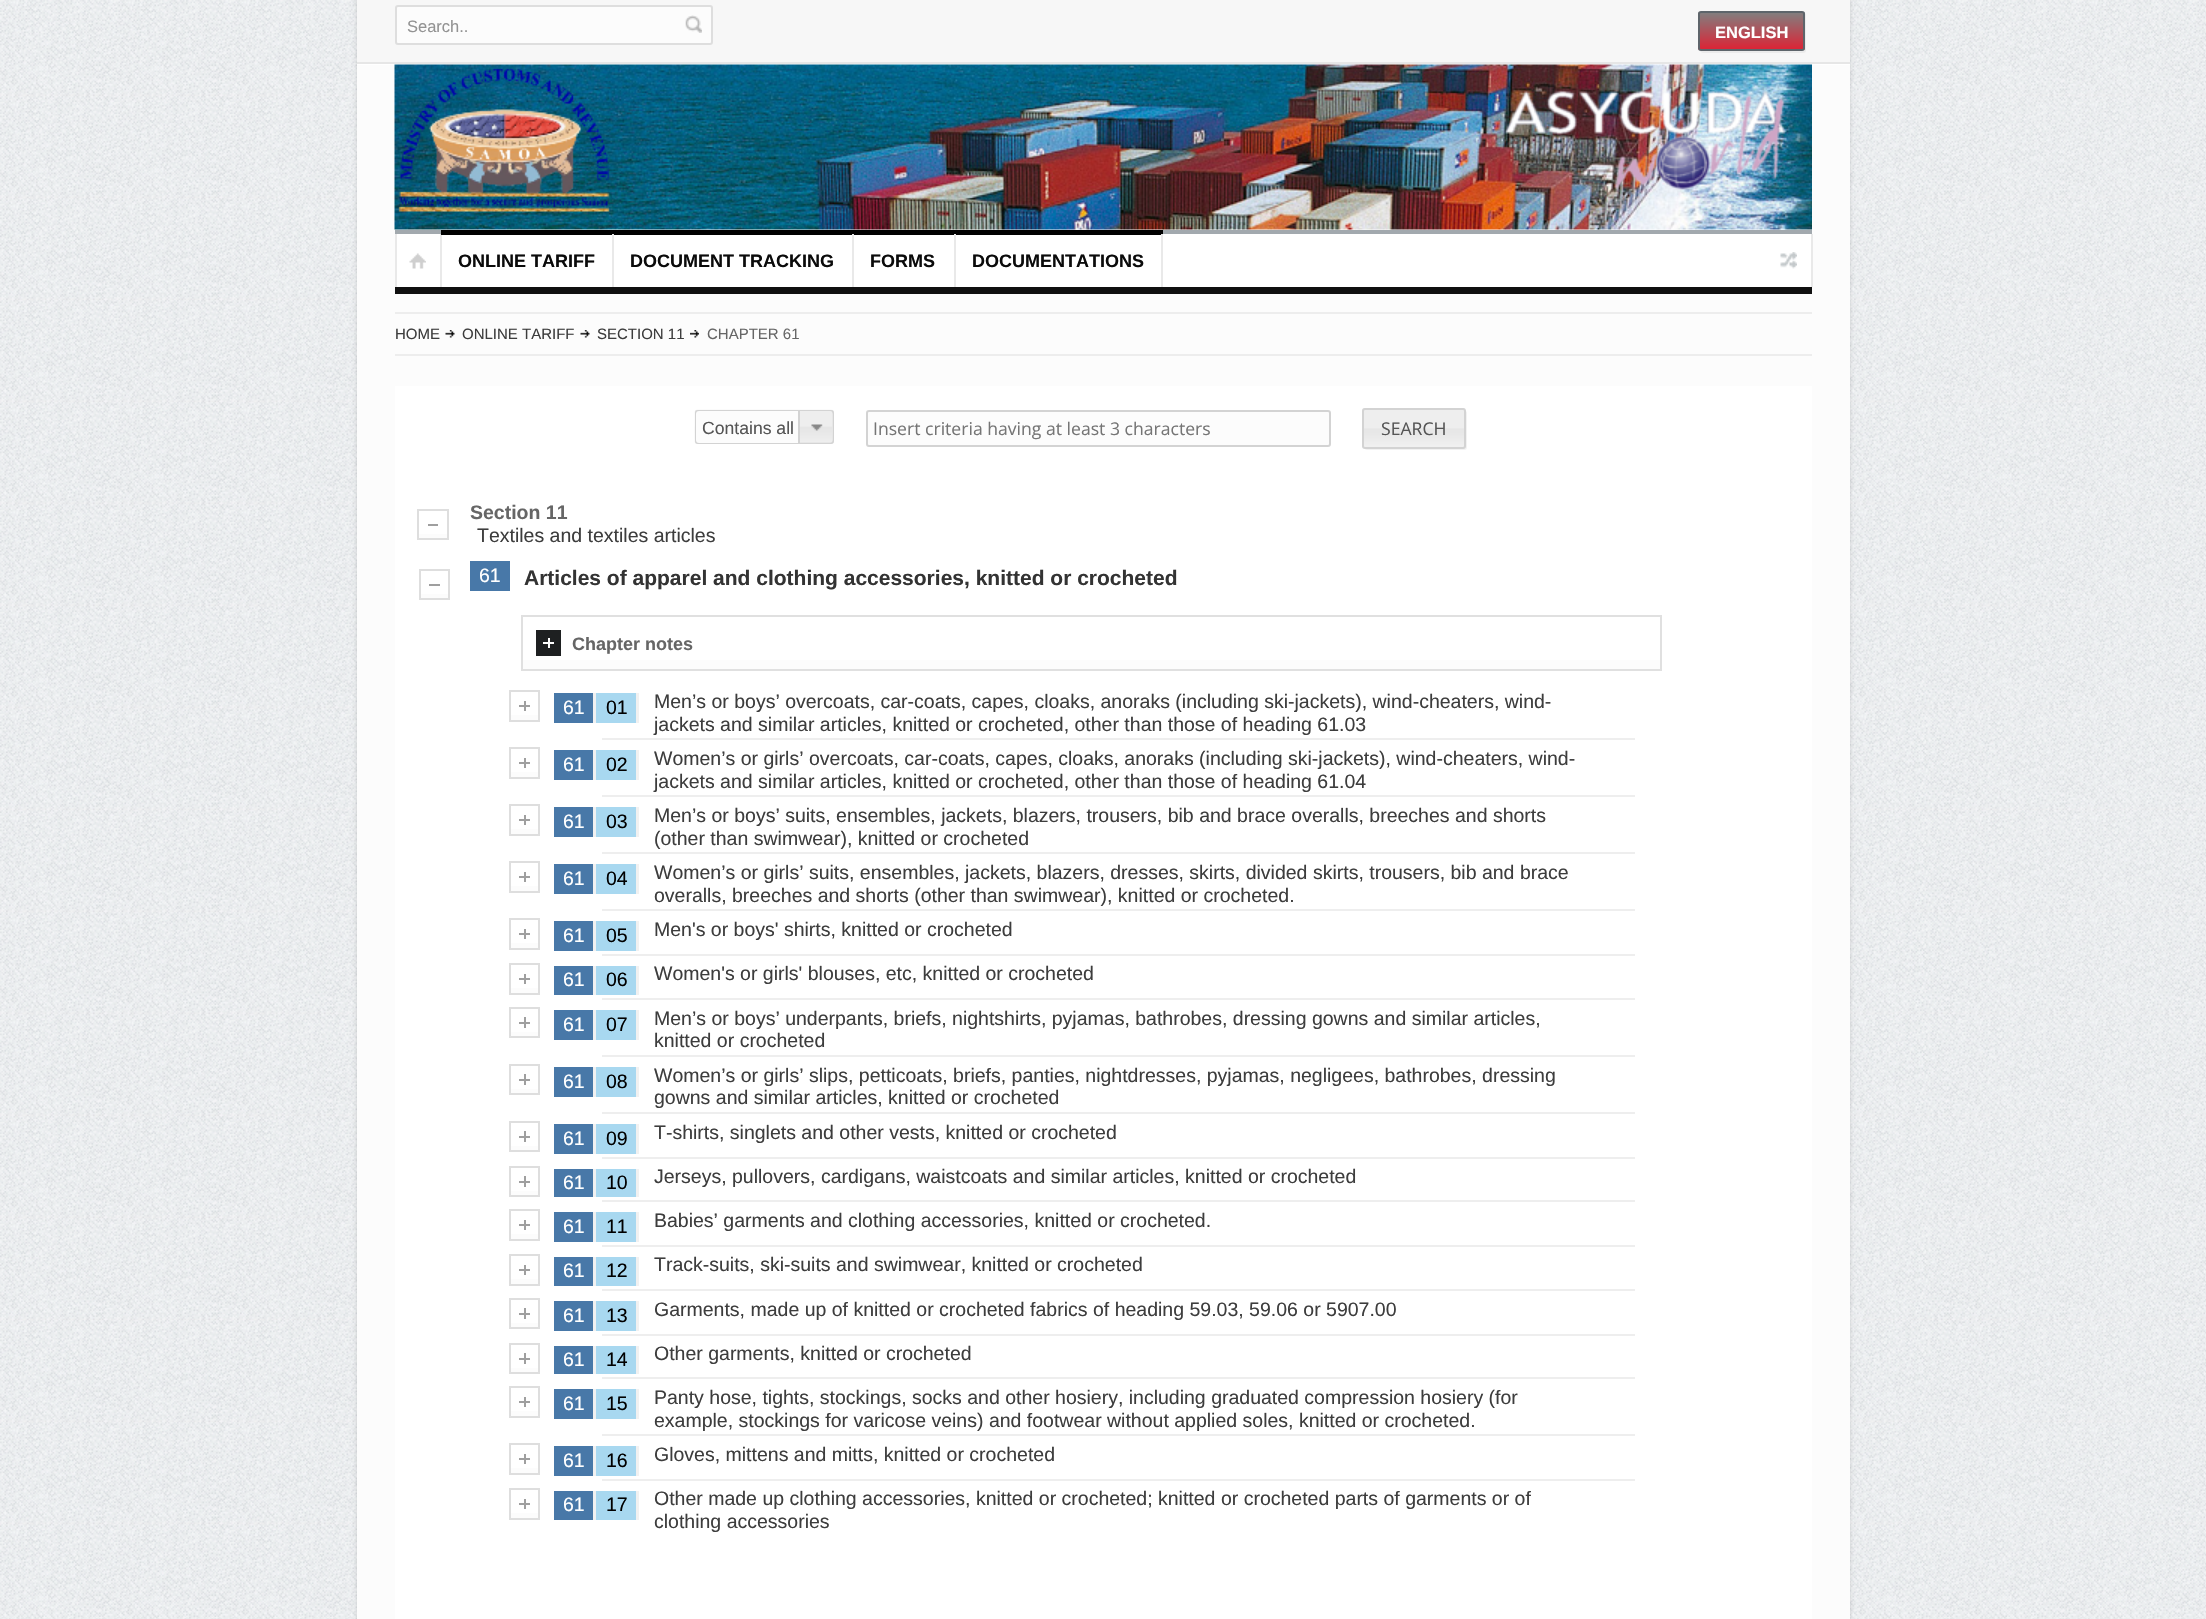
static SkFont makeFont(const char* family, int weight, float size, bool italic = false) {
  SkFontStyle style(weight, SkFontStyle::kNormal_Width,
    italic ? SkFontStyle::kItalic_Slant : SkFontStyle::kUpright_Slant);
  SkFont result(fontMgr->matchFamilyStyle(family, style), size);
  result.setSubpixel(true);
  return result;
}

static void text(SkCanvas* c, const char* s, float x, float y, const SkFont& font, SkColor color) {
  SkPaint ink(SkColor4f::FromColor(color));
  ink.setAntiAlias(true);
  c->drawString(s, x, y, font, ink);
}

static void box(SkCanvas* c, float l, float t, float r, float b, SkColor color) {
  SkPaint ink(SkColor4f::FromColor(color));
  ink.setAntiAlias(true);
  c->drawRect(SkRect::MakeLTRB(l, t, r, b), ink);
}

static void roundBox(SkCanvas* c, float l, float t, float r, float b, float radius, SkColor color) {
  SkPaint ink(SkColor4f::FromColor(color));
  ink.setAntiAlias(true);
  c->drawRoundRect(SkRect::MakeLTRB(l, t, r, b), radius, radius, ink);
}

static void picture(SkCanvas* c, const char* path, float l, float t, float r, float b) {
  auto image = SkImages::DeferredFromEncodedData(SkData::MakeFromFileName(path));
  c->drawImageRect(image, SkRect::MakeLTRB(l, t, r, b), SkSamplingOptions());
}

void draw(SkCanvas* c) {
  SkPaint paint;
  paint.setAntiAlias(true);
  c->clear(0xffffffff);
  picture(c, "img_01.png", 0, 0, 2206, 1619);
  paint.setColor(0x1a000000);
  paint.setMaskFilter(SkMaskFilter::MakeBlur(kNormal_SkBlurStyle, 1.5f));
  c->drawRect(SkRect::MakeLTRB(356, -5, 1851, 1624), paint);
  paint.setMaskFilter(nullptr);
  box(c, 357, 65, 1850, 1619, 0xfffcfcfc);
  box(c, 357, 0, 1850, 62, 0xfff7f7f7);
  box(c, 357, 64, 1850, 65, 0xffffffff);
  box(c, 357, 62, 1850, 64, 0xffe6e6e6);
  paint.setColor(0xfffcfcfc);
  c->drawRoundRect(SkRect::MakeLTRB(396, 6, 712, 44), 2, 2, paint);
  paint.setStyle(SkPaint::kStroke_Style);
  paint.setStrokeWidth(2);
  paint.setColor(0xffdedede);
  c->drawRoundRect(SkRect::MakeLTRB(396, 6, 712, 44), 2, 2, paint);
  SkFont face1 = makeFont("Liberation Sans", 400, 16.5f);
  text(c, "Search..", 407, 32, face1, 0xff939393);
  picture(c, "img_02.png", 685, 15, 702, 33);
  paint.setStyle(SkPaint::kFill_Style);
  paint.setColor(0xffebebeb);
  c->drawPath(SkPathBuilder().moveTo(1700, 51).cubicTo(1701, 52, 1702, 53, 1703, 53).lineTo(1803, 53).cubicTo(1805, 53, 1806, 52, 1806, 50).lineTo(1806, 15).cubicTo(1806, 14, 1805, 13, 1804, 12).lineTo(1804, 36).cubicTo(1804, 55, 1807, 51, 1785, 51).close().detach(), paint);
  c->save();
  c->clipPath(SkPathBuilder().moveTo(1701, 11).lineTo(1802, 11).cubicTo(1803.5f, 11, 1805, 12.5f, 1805, 14).lineTo(1805, 48).cubicTo(1805, 49.5f, 1803.5f, 51, 1802, 51).lineTo(1701, 51).cubicTo(1699.5f, 51, 1698, 49.5f, 1698, 48).lineTo(1698, 14).cubicTo(1698, 12.5f, 1699.5f, 11, 1701, 11).close().detach(), true);
  {
    const SkColor colors[] = {0xff808080, 0xffde2234};
    const float stops[] = {0, 1};
    const SkPoint ends[] = {{1751, 12}, {1751, 50}};
    paint.setShader(SkGradientShader::MakeLinear(ends, colors, stops, 2, SkTileMode::kClamp));
    paint.setAlpha(255);
  }
  c->drawRect(SkRect::MakeLTRB(1698, 12, 1805, 50), paint);
  c->restore();
  paint.setStyle(SkPaint::kStroke_Style);
  paint.setShader(nullptr);
  paint.setColor(0xff5e656b);
  c->drawRoundRect(SkRect::MakeLTRB(1699, 12, 1804, 50), 2, 2, paint);
  SkFont face2 = makeFont("Liberation Sans", 700, 16.5f);
  text(c, "ENGLISH", 1715, 38, face2, 0xffffffff);
  picture(c, "img_03.png", 394, 64, 1812, 230);
  picture(c, "img_04.png", 398, 68, 610, 212);
  picture(c, "img_05.png", 1504, 90, 1786, 190);
  box(c, 395, 230, 1812, 234, 0xffa2a9ae);
  box(c, 395, 287, 1812, 294, 0xff101010);
  box(c, 397, 234, 1811, 287, 0xffffffff);
  box(c, 1811, 234, 1813, 287, 0xffe9e9e9);
  picture(c, "img_06.png", 409, 253, 426, 269);
  box(c, 440, 234, 442, 287, 0xffe9e9e9);
  box(c, 395, 234, 397, 287, 0xffe9e9e9);
  box(c, 441, 230, 1163, 235, 0xff000000);
  box(c, 612, 234, 614, 287, 0xffe9e9e9);
  SkFont face3 = makeFont("Liberation Sans", 700, 18);
  text(c, "ONLINE TARIFF", 458, 267, face3, 0xff0b0b0b);
  box(c, 852, 234, 854, 287, 0xffe9e9e9);
  text(c, "DOCUMENT TRACKING", 630, 267, face3, 0xff0b0b0b);
  box(c, 954, 234, 956, 287, 0xffe9e9e9);
  text(c, "FORMS", 870, 267, face3, 0xff0b0b0b);
  box(c, 1161, 234, 1163, 287, 0xffe9e9e9);
  text(c, "DOCUMENTATIONS", 972, 267, face3, 0xff0b0b0b);
  picture(c, "img_07.png", 1780, 252, 1797, 269);
  box(c, 395, 312, 1812, 314, 0xffededed);
  box(c, 395, 354, 1812, 356, 0xffededed);
  picture(c, "img_08.png", 445, 330, 455, 338);
  SkFont face4 = makeFont("Liberation Sans", 400, 15);
  text(c, "HOME", 395, 339, face4, 0xff3d3d3d);
  picture(c, "img_09.png", 580, 330, 590, 338);
  text(c, "ONLINE TARIFF", 462, 339, face4, 0xff3d3d3d);
  picture(c, "img_10.png", 690, 330, 699, 338);
  text(c, "SECTION 11", 597, 339, face4, 0xff3d3d3d);
  text(c, "CHAPTER 61", 707, 339, face4, 0xff666666);
  box(c, 395, 386, 1812, 1619, 0xffffffff);
  picture(c, "img_11.png", 694, 409, 834, 444);
  paint.setColor(0xffd3d3d3);
  c->drawRoundRect(SkRect::MakeLTRB(696, 411, 833, 443), 2, 2, paint);
  roundBox(c, 696, 411, 821, 443, 3, 0xfffcfcfc);
  SkFont face5 = makeFont("Liberation Sans", 400, 17.6f);
  text(c, "Contains all", 702, 434, face5, 0xff555555);
  paint.setStyle(SkPaint::kFill_Style);
  paint.setColor(0xffe6e6e6);
  c->drawPath(SkPathBuilder().moveTo(798, 411).lineTo(830, 411).cubicTo(831.5f, 411, 833, 412.5f, 833, 414).lineTo(833, 440).cubicTo(833, 441.5f, 831.5f, 443, 830, 443).lineTo(798, 443).close().detach(), paint);
  picture(c, "img_12.png", 800, 411, 832, 442);
  box(c, 798, 411, 800, 443, 0xffd3d3d3);
  picture(c, "img_13.png", 811, 424, 823, 431);
  paint.setColor(0xfffcfcfc);
  c->drawRoundRect(SkRect::MakeLTRB(867, 411, 1330, 446), 2, 2, paint);
  paint.setStyle(SkPaint::kStroke_Style);
  paint.setColor(0xffd3d3d3);
  c->drawRoundRect(SkRect::MakeLTRB(867, 411, 1330, 446), 2, 2, paint);
  SkFont face6 = makeFont("Open Sans", 400, 17.6f);
  text(c, "Insert criteria having at least 3 characters", 873, 435, face6, 0xff757575);
  paint.setStyle(SkPaint::kFill_Style);
  paint.setColor(0xfff2f2f2);
  c->drawPath(SkPathBuilder().moveTo(1364, 448).cubicTo(1365, 449, 1366, 450, 1367, 450).lineTo(1464, 450).cubicTo(1466, 450, 1467, 449, 1467, 447).lineTo(1467, 413).cubicTo(1467, 412, 1466, 411, 1465, 410).lineTo(1466, 440).cubicTo(1466, 442, 1467, 448, 1462, 448).close().detach(), paint);
  picture(c, "img_14.png", 1362, 408, 1465, 448);
  paint.setStyle(SkPaint::kStroke_Style);
  paint.setColor(0xffd3d3d3);
  c->drawRoundRect(SkRect::MakeLTRB(1363, 409, 1465, 448), 2, 2, paint);
  text(c, "SEARCH", 1381, 435, face6, 0xff555555);
  SkFont face7 = makeFont("Liberation Sans", 700, 19.5f);
  text(c, "Section 11", 470, 519, face7, 0xff666666);
  paint.setStyle(SkPaint::kFill_Style);
  {
    const SkColor colors[] = {0xffffffff, 0xfffcfcfc};
    const float stops[] = {0, 1};
    const SkPoint ends[] = {{433, 510}, {433, 539}};
    paint.setShader(SkGradientShader::MakeLinear(ends, colors, stops, 2, SkTileMode::kClamp));
    paint.setAlpha(255);
  }
  c->drawRect(SkRect::MakeLTRB(419, 534, 447, 538), paint);
  paint.setStyle(SkPaint::kStroke_Style);
  paint.setShader(nullptr);
  paint.setColor(0xffdedede);
  c->drawRect(SkRect::MakeLTRB(418, 510, 448, 539), paint);
  box(c, 428, 524, 438, 526, 0xff9f9f9f);
  SkFont face8 = makeFont("Liberation Sans", 400, 19.5f);
  text(c, "Textiles and textiles articles", 477, 542, face8, 0xff3d3d3d);
  box(c, 470, 561, 510, 591, 0xff4878a8);
  paint.setStyle(SkPaint::kFill_Style);
  {
    const SkColor colors[] = {0xffffffff, 0xfffcfcfc};
    const float stops[] = {0, 1};
    const SkPoint ends[] = {{434, 570}, {434, 599}};
    paint.setShader(SkGradientShader::MakeLinear(ends, colors, stops, 2, SkTileMode::kClamp));
    paint.setAlpha(255);
  }
  c->drawRect(SkRect::MakeLTRB(421, 594, 448, 598), paint);
  paint.setStyle(SkPaint::kStroke_Style);
  paint.setShader(nullptr);
  paint.setColor(0xffdedede);
  c->drawRect(SkRect::MakeLTRB(420, 570, 449, 599), paint);
  box(c, 429, 584, 440, 586, 0xff9f9f9f);
  text(c, "61", 479, 582, face8, 0xffffffff);
  SkFont face9 = makeFont("Liberation Sans", 700, 21);
  text(c, "Articles of apparel and clothing accessories, knitted or crocheted", 524, 585, face9, 0xff333333);
  paint.setStyle(SkPaint::kFill_Style);
  {
    const SkColor colors[] = {0xffffffff, 0xfffcfcfc};
    const float stops[] = {0, 1};
    const SkPoint ends[] = {{1091, 616}, {1091, 669}};
    paint.setShader(SkGradientShader::MakeLinear(ends, colors, stops, 2, SkTileMode::kClamp));
    paint.setAlpha(255);
  }
  c->drawRect(SkRect::MakeLTRB(523, 660, 1660, 669), paint);
  paint.setStyle(SkPaint::kStroke_Style);
  paint.setShader(nullptr);
  paint.setColor(0xffe0e0e0);
  c->drawRect(SkRect::MakeLTRB(522, 616, 1661, 670), paint);
  box(c, 536, 630, 561, 656, 0xff1e2021);
  box(c, 548, 638, 550, 648, 0xffffffff);
  box(c, 543, 642, 554, 644, 0xffffffff);
  text(c, "Chapter notes", 572, 650, face3, 0xff666666);
  paint.setStyle(SkPaint::kFill_Style);
  {
    const SkColor colors[] = {0xffffffff, 0xfffcfcfc};
    const float stops[] = {0, 1};
    const SkPoint ends[] = {{524, 692}, {524, 720}};
    paint.setShader(SkGradientShader::MakeLinear(ends, colors, stops, 2, SkTileMode::kClamp));
    paint.setAlpha(255);
  }
  c->drawRect(SkRect::MakeLTRB(511, 715, 538, 720), paint);
  paint.setStyle(SkPaint::kStroke_Style);
  paint.setShader(nullptr);
  paint.setColor(0xffdedede);
  c->drawRect(SkRect::MakeLTRB(510, 691, 539, 721), paint);
  box(c, 524, 701, 526, 711, 0xff9f9f9f);
  box(c, 519, 705, 530, 707, 0xff9f9f9f);
  box(c, 554, 693, 593, 723, 0xff4878a8);
  box(c, 593, 693, 596, 723, 0xfff1f1f1);
  text(c, "61", 563, 714, face8, 0xffffffff);
  box(c, 596, 693, 636, 723, 0xffa8d8f0);
  box(c, 636, 693, 639, 723, 0xfff1f1f1);
  text(c, "01", 606, 714, face8, 0xff000000);
  text(c, "Men’s or boys’ overcoats, car-coats, capes, cloaks, anoraks (including ski-jackets), wind-cheaters, wind-", 654, 708, face8, 0xff3d3d3d);
  text(c, "jackets and similar articles, knitted or crocheted, other than those of heading 61.03", 654, 731, face8, 0xff3d3d3d);
  paint.setStyle(SkPaint::kFill_Style);
  {
    const SkColor colors[] = {0xffffffff, 0xfffcfcfc};
    const float stops[] = {0, 1};
    const SkPoint ends[] = {{524, 749}, {524, 777}};
    paint.setShader(SkGradientShader::MakeLinear(ends, colors, stops, 2, SkTileMode::kClamp));
    paint.setAlpha(255);
  }
  c->drawRect(SkRect::MakeLTRB(511, 772, 538, 777), paint);
  paint.setStyle(SkPaint::kStroke_Style);
  paint.setShader(nullptr);
  paint.setColor(0xffdedede);
  c->drawRect(SkRect::MakeLTRB(510, 748, 539, 778), paint);
  box(c, 524, 758, 526, 768, 0xff9f9f9f);
  box(c, 519, 762, 530, 764, 0xff9f9f9f);
  box(c, 554, 750, 593, 780, 0xff4878a8);
  box(c, 593, 750, 596, 780, 0xfff1f1f1);
  text(c, "61", 563, 771, face8, 0xffffffff);
  box(c, 596, 750, 636, 780, 0xffa8d8f0);
  box(c, 636, 750, 639, 780, 0xfff1f1f1);
  text(c, "02", 606, 771, face8, 0xff000000);
  box(c, 602, 738, 1635, 740, 0xffeeeeee);
  text(c, "Women’s or girls’ overcoats, car-coats, capes, cloaks, anoraks (including ski-jackets), wind-cheaters, wind-", 654, 765, face8, 0xff3d3d3d);
  text(c, "jackets and similar articles, knitted or crocheted, other than those of heading 61.04", 654, 788, face8, 0xff3d3d3d);
  paint.setStyle(SkPaint::kFill_Style);
  {
    const SkColor colors[] = {0xffffffff, 0xfffcfcfc};
    const float stops[] = {0, 1};
    const SkPoint ends[] = {{524, 806}, {524, 834}};
    paint.setShader(SkGradientShader::MakeLinear(ends, colors, stops, 2, SkTileMode::kClamp));
    paint.setAlpha(255);
  }
  c->drawRect(SkRect::MakeLTRB(511, 829, 538, 834), paint);
  paint.setStyle(SkPaint::kStroke_Style);
  paint.setShader(nullptr);
  paint.setColor(0xffdedede);
  c->drawRect(SkRect::MakeLTRB(510, 805, 539, 835), paint);
  box(c, 524, 815, 526, 825, 0xff9f9f9f);
  box(c, 519, 819, 530, 821, 0xff9f9f9f);
  box(c, 554, 807, 593, 837, 0xff4878a8);
  box(c, 593, 807, 596, 837, 0xfff1f1f1);
  text(c, "61", 563, 828, face8, 0xffffffff);
  box(c, 596, 807, 636, 837, 0xffa8d8f0);
  box(c, 636, 807, 639, 837, 0xfff1f1f1);
  text(c, "03", 606, 828, face8, 0xff000000);
  box(c, 602, 795, 1635, 797, 0xffeeeeee);
  text(c, "Men’s or boys’ suits, ensembles, jackets, blazers, trousers, bib and brace overalls, breeches and shorts", 654, 822, face8, 0xff3d3d3d);
  text(c, "(other than swimwear), knitted or crocheted", 654, 845, face8, 0xff3d3d3d);
  paint.setStyle(SkPaint::kFill_Style);
  {
    const SkColor colors[] = {0xffffffff, 0xfffcfcfc};
    const float stops[] = {0, 1};
    const SkPoint ends[] = {{524, 863}, {524, 891}};
    paint.setShader(SkGradientShader::MakeLinear(ends, colors, stops, 2, SkTileMode::kClamp));
    paint.setAlpha(255);
  }
  c->drawRect(SkRect::MakeLTRB(511, 886, 538, 891), paint);
  paint.setStyle(SkPaint::kStroke_Style);
  paint.setShader(nullptr);
  paint.setColor(0xffdedede);
  c->drawRect(SkRect::MakeLTRB(510, 862, 539, 892), paint);
  box(c, 524, 872, 526, 882, 0xff9f9f9f);
  box(c, 519, 876, 530, 878, 0xff9f9f9f);
  box(c, 554, 864, 593, 894, 0xff4878a8);
  box(c, 593, 864, 596, 894, 0xfff1f1f1);
  text(c, "61", 563, 885, face8, 0xffffffff);
  box(c, 596, 864, 636, 894, 0xffa8d8f0);
  box(c, 636, 864, 639, 894, 0xfff1f1f1);
  text(c, "04", 606, 885, face8, 0xff000000);
  box(c, 602, 852, 1635, 854, 0xffeeeeee);
  text(c, "Women’s or girls’ suits, ensembles, jackets, blazers, dresses, skirts, divided skirts, trousers, bib and brace", 654, 879, face8, 0xff3d3d3d);
  text(c, "overalls, breeches and shorts (other than swimwear), knitted or crocheted.", 654, 902, face8, 0xff3d3d3d);
  paint.setStyle(SkPaint::kFill_Style);
  {
    const SkColor colors[] = {0xffffffff, 0xfffcfcfc};
    const float stops[] = {0, 1};
    const SkPoint ends[] = {{524, 920}, {524, 948}};
    paint.setShader(SkGradientShader::MakeLinear(ends, colors, stops, 2, SkTileMode::kClamp));
    paint.setAlpha(255);
  }
  c->drawRect(SkRect::MakeLTRB(511, 943, 538, 948), paint);
  paint.setStyle(SkPaint::kStroke_Style);
  paint.setShader(nullptr);
  paint.setColor(0xffdedede);
  c->drawRect(SkRect::MakeLTRB(510, 919, 539, 949), paint);
  box(c, 524, 929, 526, 939, 0xff9f9f9f);
  box(c, 519, 933, 530, 935, 0xff9f9f9f);
  box(c, 554, 921, 593, 951, 0xff4878a8);
  box(c, 593, 921, 596, 951, 0xfff1f1f1);
  text(c, "61", 563, 942, face8, 0xffffffff);
  box(c, 596, 921, 636, 951, 0xffa8d8f0);
  box(c, 636, 921, 639, 951, 0xfff1f1f1);
  text(c, "05", 606, 942, face8, 0xff000000);
  box(c, 602, 909, 1635, 911, 0xffeeeeee);
  text(c, "Men's or boys' shirts, knitted or crocheted", 654, 936, face8, 0xff3d3d3d);
  paint.setStyle(SkPaint::kFill_Style);
  {
    const SkColor colors[] = {0xffffffff, 0xfffcfcfc};
    const float stops[] = {0, 1};
    const SkPoint ends[] = {{524, 965}, {524, 993}};
    paint.setShader(SkGradientShader::MakeLinear(ends, colors, stops, 2, SkTileMode::kClamp));
    paint.setAlpha(255);
  }
  c->drawRect(SkRect::MakeLTRB(511, 988, 538, 993), paint);
  paint.setStyle(SkPaint::kStroke_Style);
  paint.setShader(nullptr);
  paint.setColor(0xffdedede);
  c->drawRect(SkRect::MakeLTRB(510, 964, 539, 994), paint);
  box(c, 524, 974, 526, 984, 0xff9f9f9f);
  box(c, 519, 978, 530, 980, 0xff9f9f9f);
  box(c, 554, 966, 593, 995, 0xff4878a8);
  box(c, 593, 966, 596, 995, 0xfff1f1f1);
  text(c, "61", 563, 986, face8, 0xffffffff);
  box(c, 596, 966, 636, 995, 0xffa8d8f0);
  box(c, 636, 966, 639, 995, 0xfff1f1f1);
  text(c, "06", 606, 986, face8, 0xff000000);
  box(c, 602, 954, 1635, 956, 0xffeeeeee);
  text(c, "Women's or girls' blouses, etc, knitted or crocheted", 654, 980, face8, 0xff3d3d3d);
  paint.setStyle(SkPaint::kFill_Style);
  {
    const SkColor colors[] = {0xffffffff, 0xfffcfcfc};
    const float stops[] = {0, 1};
    const SkPoint ends[] = {{524, 1008}, {524, 1037}};
    paint.setShader(SkGradientShader::MakeLinear(ends, colors, stops, 2, SkTileMode::kClamp));
    paint.setAlpha(255);
  }
  c->drawRect(SkRect::MakeLTRB(511, 1032, 538, 1036), paint);
  paint.setStyle(SkPaint::kStroke_Style);
  paint.setShader(nullptr);
  paint.setColor(0xffdedede);
  c->drawRect(SkRect::MakeLTRB(510, 1008, 539, 1037), paint);
  box(c, 524, 1017, 526, 1028, 0xff9f9f9f);
  box(c, 519, 1022, 530, 1024, 0xff9f9f9f);
  box(c, 554, 1010, 593, 1040, 0xff4878a8);
  box(c, 593, 1010, 596, 1040, 0xfff1f1f1);
  text(c, "61", 563, 1031, face8, 0xffffffff);
  box(c, 596, 1010, 636, 1040, 0xffa8d8f0);
  box(c, 636, 1010, 639, 1040, 0xfff1f1f1);
  text(c, "07", 606, 1031, face8, 0xff000000);
  box(c, 602, 998, 1635, 1000, 0xffeeeeee);
  text(c, "Men’s or boys’ underpants, briefs, nightshirts, pyjamas, bathrobes, dressing gowns and similar articles,", 654, 1025, face8, 0xff3d3d3d);
  text(c, "knitted or crocheted", 654, 1047, face8, 0xff3d3d3d);
  paint.setStyle(SkPaint::kFill_Style);
  {
    const SkColor colors[] = {0xffffffff, 0xfffcfcfc};
    const float stops[] = {0, 1};
    const SkPoint ends[] = {{524, 1065}, {524, 1094}};
    paint.setShader(SkGradientShader::MakeLinear(ends, colors, stops, 2, SkTileMode::kClamp));
    paint.setAlpha(255);
  }
  c->drawRect(SkRect::MakeLTRB(511, 1089, 538, 1093), paint);
  paint.setStyle(SkPaint::kStroke_Style);
  paint.setShader(nullptr);
  paint.setColor(0xffdedede);
  c->drawRect(SkRect::MakeLTRB(510, 1065, 539, 1094), paint);
  box(c, 524, 1074, 526, 1085, 0xff9f9f9f);
  box(c, 519, 1079, 530, 1081, 0xff9f9f9f);
  box(c, 554, 1067, 593, 1097, 0xff4878a8);
  box(c, 593, 1067, 596, 1097, 0xfff1f1f1);
  text(c, "61", 563, 1088, face8, 0xffffffff);
  box(c, 596, 1067, 636, 1097, 0xffa8d8f0);
  box(c, 636, 1067, 639, 1097, 0xfff1f1f1);
  text(c, "08", 606, 1088, face8, 0xff000000);
  box(c, 602, 1055, 1635, 1057, 0xffeeeeee);
  text(c, "Women’s or girls’ slips, petticoats, briefs, panties, nightdresses, pyjamas, negligees, bathrobes, dressing", 654, 1082, face8, 0xff3d3d3d);
  text(c, "gowns and similar articles, knitted or crocheted", 654, 1104, face8, 0xff3d3d3d);
  paint.setStyle(SkPaint::kFill_Style);
  {
    const SkColor colors[] = {0xffffffff, 0xfffcfcfc};
    const float stops[] = {0, 1};
    const SkPoint ends[] = {{524, 1122}, {524, 1151}};
    paint.setShader(SkGradientShader::MakeLinear(ends, colors, stops, 2, SkTileMode::kClamp));
    paint.setAlpha(255);
  }
  c->drawRect(SkRect::MakeLTRB(511, 1146, 538, 1150), paint);
  paint.setStyle(SkPaint::kStroke_Style);
  paint.setShader(nullptr);
  paint.setColor(0xffdedede);
  c->drawRect(SkRect::MakeLTRB(510, 1122, 539, 1151), paint);
  box(c, 524, 1131, 526, 1142, 0xff9f9f9f);
  box(c, 519, 1136, 530, 1138, 0xff9f9f9f);
  box(c, 554, 1124, 593, 1154, 0xff4878a8);
  box(c, 593, 1124, 596, 1154, 0xfff1f1f1);
  text(c, "61", 563, 1145, face8, 0xffffffff);
  box(c, 596, 1124, 636, 1154, 0xffa8d8f0);
  box(c, 636, 1124, 639, 1154, 0xfff1f1f1);
  text(c, "09", 606, 1145, face8, 0xff000000);
  box(c, 602, 1112, 1635, 1114, 0xffeeeeee);
  text(c, "T-shirts, singlets and other vests, knitted or crocheted", 654, 1139, face8, 0xff3d3d3d);
  paint.setStyle(SkPaint::kFill_Style);
  {
    const SkColor colors[] = {0xffffffff, 0xfffcfcfc};
    const float stops[] = {0, 1};
    const SkPoint ends[] = {{524, 1167}, {524, 1196}};
    paint.setShader(SkGradientShader::MakeLinear(ends, colors, stops, 2, SkTileMode::kClamp));
    paint.setAlpha(255);
  }
  c->drawRect(SkRect::MakeLTRB(511, 1191, 538, 1195), paint);
  paint.setStyle(SkPaint::kStroke_Style);
  paint.setShader(nullptr);
  paint.setColor(0xffdedede);
  c->drawRect(SkRect::MakeLTRB(510, 1167, 539, 1196), paint);
  box(c, 524, 1176, 526, 1187, 0xff9f9f9f);
  box(c, 519, 1181, 530, 1183, 0xff9f9f9f);
  box(c, 554, 1169, 593, 1197, 0xff4878a8);
  box(c, 593, 1169, 596, 1197, 0xfff1f1f1);
  text(c, "61", 563, 1189, face8, 0xffffffff);
  box(c, 596, 1169, 636, 1197, 0xffa8d8f0);
  box(c, 636, 1169, 639, 1197, 0xfff1f1f1);
  text(c, "10", 606, 1189, face8, 0xff000000);
  box(c, 602, 1157, 1635, 1159, 0xffeeeeee);
  text(c, "Jerseys, pullovers, cardigans, waistcoats and similar articles, knitted or crocheted", 654, 1183, face8, 0xff3d3d3d);
  paint.setStyle(SkPaint::kFill_Style);
  {
    const SkColor colors[] = {0xffffffff, 0xfffcfcfc};
    const float stops[] = {0, 1};
    const SkPoint ends[] = {{524, 1211}, {524, 1239}};
    paint.setShader(SkGradientShader::MakeLinear(ends, colors, stops, 2, SkTileMode::kClamp));
    paint.setAlpha(255);
  }
  c->drawRect(SkRect::MakeLTRB(511, 1234, 538, 1239), paint);
  paint.setStyle(SkPaint::kStroke_Style);
  paint.setShader(nullptr);
  paint.setColor(0xffdedede);
  c->drawRect(SkRect::MakeLTRB(510, 1210, 539, 1240), paint);
  box(c, 524, 1220, 526, 1230, 0xff9f9f9f);
  box(c, 519, 1224, 530, 1226, 0xff9f9f9f);
  box(c, 554, 1212, 593, 1242, 0xff4878a8);
  box(c, 593, 1212, 596, 1242, 0xfff1f1f1);
  text(c, "61", 563, 1233, face8, 0xffffffff);
  box(c, 596, 1212, 636, 1242, 0xffa8d8f0);
  box(c, 636, 1212, 639, 1242, 0xfff1f1f1);
  text(c, "11", 606, 1233, face8, 0xff000000);
  box(c, 602, 1200, 1635, 1202, 0xffeeeeee);
  text(c, "Babies’ garments and clothing accessories, knitted or crocheted.", 654, 1227, face8, 0xff3d3d3d);
  paint.setStyle(SkPaint::kFill_Style);
  {
    const SkColor colors[] = {0xffffffff, 0xfffcfcfc};
    const float stops[] = {0, 1};
    const SkPoint ends[] = {{524, 1256}, {524, 1284}};
    paint.setShader(SkGradientShader::MakeLinear(ends, colors, stops, 2, SkTileMode::kClamp));
    paint.setAlpha(255);
  }
  c->drawRect(SkRect::MakeLTRB(511, 1279, 538, 1284), paint);
  paint.setStyle(SkPaint::kStroke_Style);
  paint.setShader(nullptr);
  paint.setColor(0xffdedede);
  c->drawRect(SkRect::MakeLTRB(510, 1255, 539, 1285), paint);
  box(c, 524, 1265, 526, 1275, 0xff9f9f9f);
  box(c, 519, 1269, 530, 1271, 0xff9f9f9f);
  box(c, 554, 1257, 593, 1286, 0xff4878a8);
  box(c, 593, 1257, 596, 1286, 0xfff1f1f1);
  text(c, "61", 563, 1277, face8, 0xffffffff);
  box(c, 596, 1257, 636, 1286, 0xffa8d8f0);
  box(c, 636, 1257, 639, 1286, 0xfff1f1f1);
  text(c, "12", 606, 1277, face8, 0xff000000);
  box(c, 602, 1245, 1635, 1247, 0xffeeeeee);
  text(c, "Track-suits, ski-suits and swimwear, knitted or crocheted", 654, 1271, face8, 0xff3d3d3d);
  paint.setStyle(SkPaint::kFill_Style);
  {
    const SkColor colors[] = {0xffffffff, 0xfffcfcfc};
    const float stops[] = {0, 1};
    const SkPoint ends[] = {{524, 1299}, {524, 1328}};
    paint.setShader(SkGradientShader::MakeLinear(ends, colors, stops, 2, SkTileMode::kClamp));
    paint.setAlpha(255);
  }
  c->drawRect(SkRect::MakeLTRB(511, 1323, 538, 1327), paint);
  paint.setStyle(SkPaint::kStroke_Style);
  paint.setShader(nullptr);
  paint.setColor(0xffdedede);
  c->drawRect(SkRect::MakeLTRB(510, 1299, 539, 1328), paint);
  box(c, 524, 1308, 526, 1319, 0xff9f9f9f);
  box(c, 519, 1313, 530, 1315, 0xff9f9f9f);
  box(c, 554, 1301, 593, 1331, 0xff4878a8);
  box(c, 593, 1301, 596, 1331, 0xfff1f1f1);
  text(c, "61", 563, 1322, face8, 0xffffffff);
  box(c, 596, 1301, 636, 1331, 0xffa8d8f0);
  box(c, 636, 1301, 639, 1331, 0xfff1f1f1);
  text(c, "13", 606, 1322, face8, 0xff000000);
  box(c, 602, 1289, 1635, 1291, 0xffeeeeee);
  text(c, "Garments, made up of knitted or crocheted fabrics of heading 59.03, 59.06 or 5907.00", 654, 1316, face8, 0xff3d3d3d);
  paint.setStyle(SkPaint::kFill_Style);
  {
    const SkColor colors[] = {0xffffffff, 0xfffcfcfc};
    const float stops[] = {0, 1};
    const SkPoint ends[] = {{524, 1344}, {524, 1373}};
    paint.setShader(SkGradientShader::MakeLinear(ends, colors, stops, 2, SkTileMode::kClamp));
    paint.setAlpha(255);
  }
  c->drawRect(SkRect::MakeLTRB(511, 1368, 538, 1372), paint);
  paint.setStyle(SkPaint::kStroke_Style);
  paint.setShader(nullptr);
  paint.setColor(0xffdedede);
  c->drawRect(SkRect::MakeLTRB(510, 1344, 539, 1373), paint);
  box(c, 524, 1353, 526, 1364, 0xff9f9f9f);
  box(c, 519, 1358, 530, 1360, 0xff9f9f9f);
  box(c, 554, 1346, 593, 1374, 0xff4878a8);
  box(c, 593, 1346, 596, 1374, 0xfff1f1f1);
  text(c, "61", 563, 1366, face8, 0xffffffff);
  box(c, 596, 1346, 636, 1374, 0xffa8d8f0);
  box(c, 636, 1346, 639, 1374, 0xfff1f1f1);
  text(c, "14", 606, 1366, face8, 0xff000000);
  box(c, 602, 1334, 1635, 1336, 0xffeeeeee);
  text(c, "Other garments, knitted or crocheted", 654, 1360, face8, 0xff3d3d3d);
  paint.setStyle(SkPaint::kFill_Style);
  {
    const SkColor colors[] = {0xffffffff, 0xfffcfcfc};
    const float stops[] = {0, 1};
    const SkPoint ends[] = {{524, 1388}, {524, 1416}};
    paint.setShader(SkGradientShader::MakeLinear(ends, colors, stops, 2, SkTileMode::kClamp));
    paint.setAlpha(255);
  }
  c->drawRect(SkRect::MakeLTRB(511, 1411, 538, 1416), paint);
  paint.setStyle(SkPaint::kStroke_Style);
  paint.setShader(nullptr);
  paint.setColor(0xffdedede);
  c->drawRect(SkRect::MakeLTRB(510, 1387, 539, 1417), paint);
  box(c, 524, 1397, 526, 1407, 0xff9f9f9f);
  box(c, 519, 1401, 530, 1403, 0xff9f9f9f);
  box(c, 554, 1389, 593, 1419, 0xff4878a8);
  box(c, 593, 1389, 596, 1419, 0xfff1f1f1);
  text(c, "61", 563, 1410, face8, 0xffffffff);
  box(c, 596, 1389, 636, 1419, 0xffa8d8f0);
  box(c, 636, 1389, 639, 1419, 0xfff1f1f1);
  text(c, "15", 606, 1410, face8, 0xff000000);
  box(c, 602, 1377, 1635, 1379, 0xffeeeeee);
  text(c, "Panty hose, tights, stockings, socks and other hosiery, including graduated compression hosiery (for", 654, 1404, face8, 0xff3d3d3d);
  text(c, "example, stockings for varicose veins) and footwear without applied soles, knitted or crocheted.", 654, 1427, face8, 0xff3d3d3d);
  paint.setStyle(SkPaint::kFill_Style);
  {
    const SkColor colors[] = {0xffffffff, 0xfffcfcfc};
    const float stops[] = {0, 1};
    const SkPoint ends[] = {{524, 1445}, {524, 1473}};
    paint.setShader(SkGradientShader::MakeLinear(ends, colors, stops, 2, SkTileMode::kClamp));
    paint.setAlpha(255);
  }
  c->drawRect(SkRect::MakeLTRB(511, 1468, 538, 1473), paint);
  paint.setStyle(SkPaint::kStroke_Style);
  paint.setShader(nullptr);
  paint.setColor(0xffdedede);
  c->drawRect(SkRect::MakeLTRB(510, 1444, 539, 1474), paint);
  box(c, 524, 1454, 526, 1464, 0xff9f9f9f);
  box(c, 519, 1458, 530, 1460, 0xff9f9f9f);
  box(c, 554, 1446, 593, 1476, 0xff4878a8);
  box(c, 593, 1446, 596, 1476, 0xfff1f1f1);
  text(c, "61", 563, 1467, face8, 0xffffffff);
  box(c, 596, 1446, 636, 1476, 0xffa8d8f0);
  box(c, 636, 1446, 639, 1476, 0xfff1f1f1);
  text(c, "16", 606, 1467, face8, 0xff000000);
  box(c, 602, 1434, 1635, 1436, 0xffeeeeee);
  text(c, "Gloves, mittens and mitts, knitted or crocheted", 654, 1461, face8, 0xff3d3d3d);
  paint.setStyle(SkPaint::kFill_Style);
  {
    const SkColor colors[] = {0xffffffff, 0xfffcfcfc};
    const float stops[] = {0, 1};
    const SkPoint ends[] = {{524, 1490}, {524, 1518}};
    paint.setShader(SkGradientShader::MakeLinear(ends, colors, stops, 2, SkTileMode::kClamp));
    paint.setAlpha(255);
  }
  c->drawRect(SkRect::MakeLTRB(511, 1513, 538, 1518), paint);
  paint.setStyle(SkPaint::kStroke_Style);
  paint.setShader(nullptr);
  paint.setColor(0xffdedede);
  c->drawRect(SkRect::MakeLTRB(510, 1489, 539, 1519), paint);
  box(c, 524, 1499, 526, 1509, 0xff9f9f9f);
  box(c, 519, 1503, 530, 1505, 0xff9f9f9f);
  box(c, 554, 1491, 593, 1520, 0xff4878a8);
  box(c, 593, 1491, 596, 1520, 0xfff1f1f1);
  text(c, "61", 563, 1511, face8, 0xffffffff);
  box(c, 596, 1491, 636, 1520, 0xffa8d8f0);
  box(c, 636, 1491, 639, 1520, 0xfff1f1f1);
  text(c, "17", 606, 1511, face8, 0xff000000);
  box(c, 602, 1479, 1635, 1481, 0xffeeeeee);
  text(c, "Other made up clothing accessories, knitted or crocheted; knitted or crocheted parts of garments or of", 654, 1505, face8, 0xff3d3d3d);
  text(c, "clothing accessories", 654, 1528, face8, 0xff3d3d3d);
}
